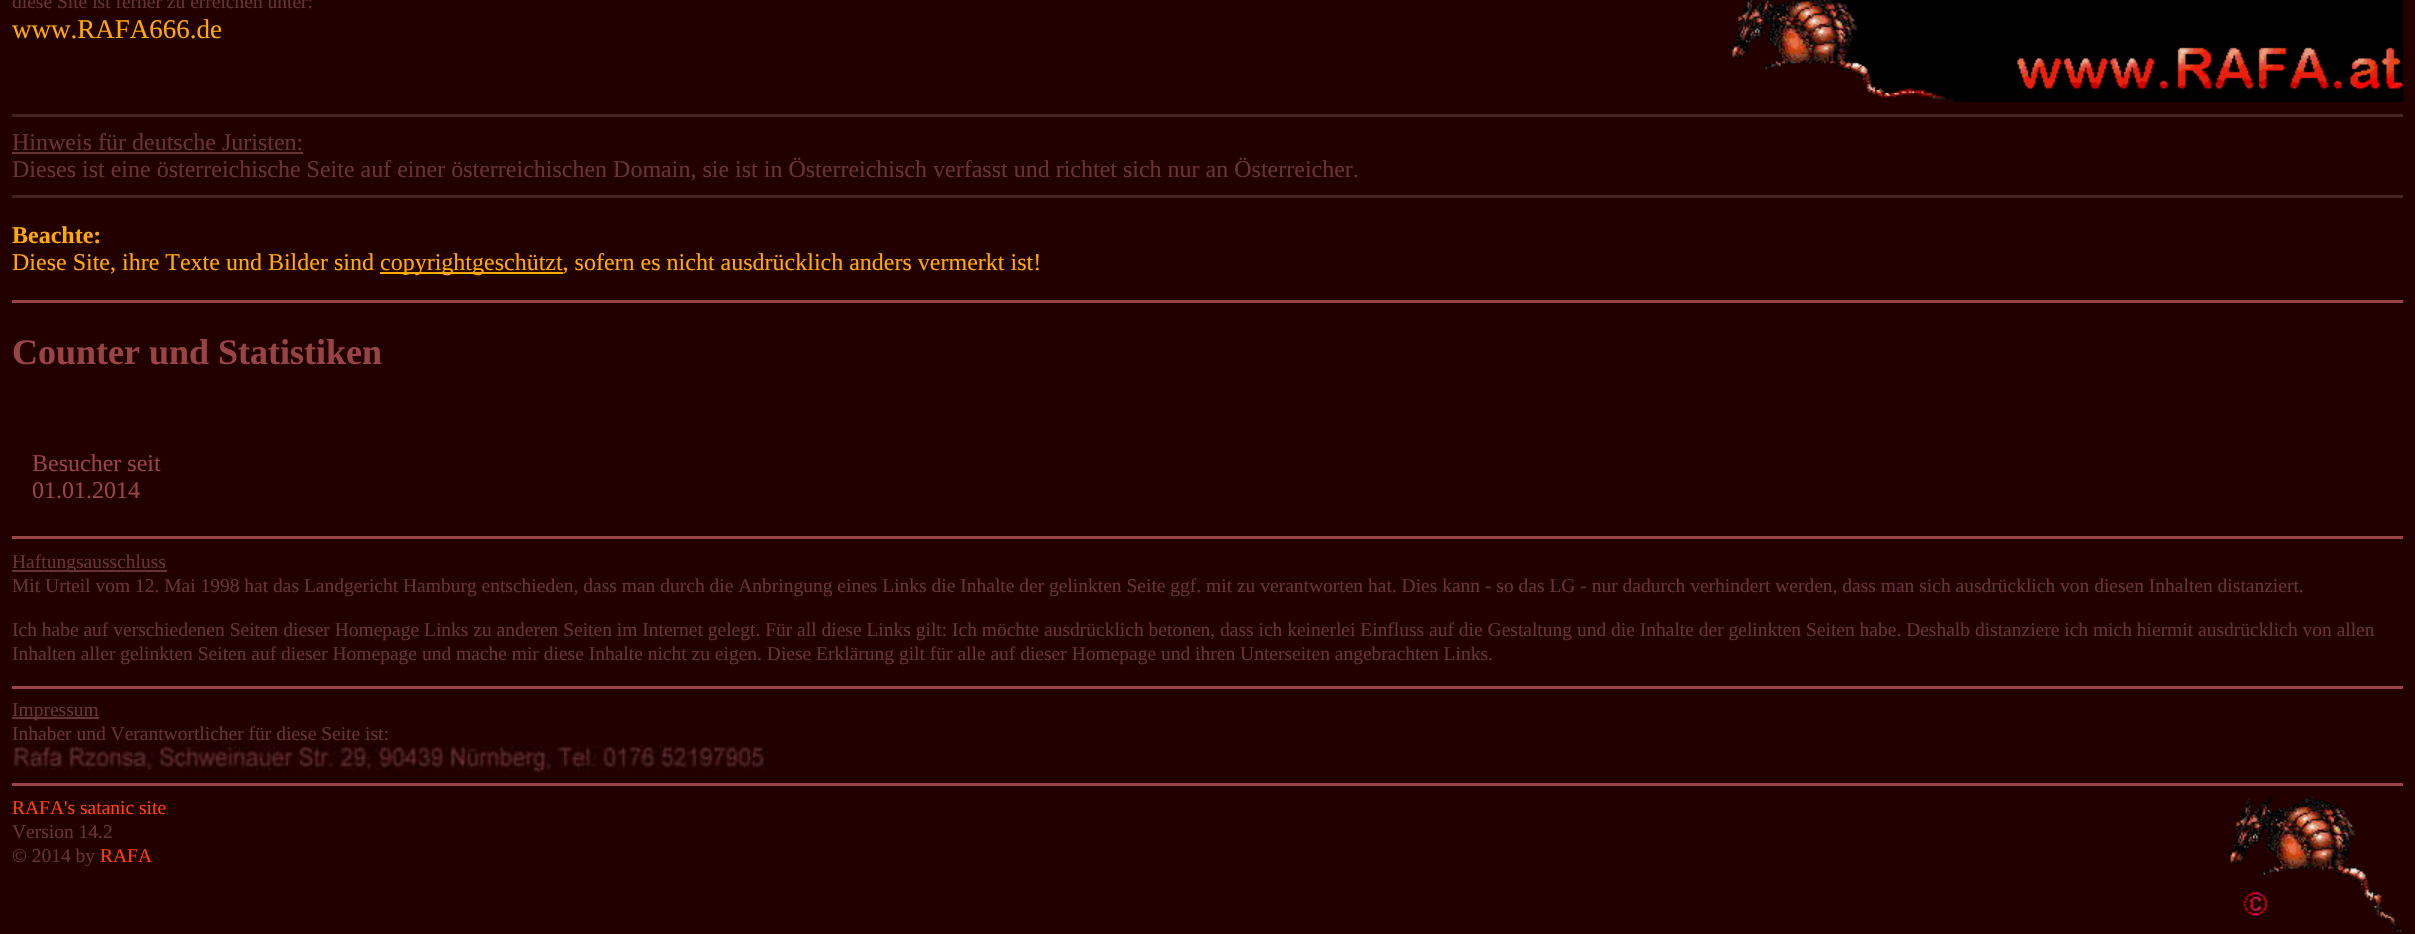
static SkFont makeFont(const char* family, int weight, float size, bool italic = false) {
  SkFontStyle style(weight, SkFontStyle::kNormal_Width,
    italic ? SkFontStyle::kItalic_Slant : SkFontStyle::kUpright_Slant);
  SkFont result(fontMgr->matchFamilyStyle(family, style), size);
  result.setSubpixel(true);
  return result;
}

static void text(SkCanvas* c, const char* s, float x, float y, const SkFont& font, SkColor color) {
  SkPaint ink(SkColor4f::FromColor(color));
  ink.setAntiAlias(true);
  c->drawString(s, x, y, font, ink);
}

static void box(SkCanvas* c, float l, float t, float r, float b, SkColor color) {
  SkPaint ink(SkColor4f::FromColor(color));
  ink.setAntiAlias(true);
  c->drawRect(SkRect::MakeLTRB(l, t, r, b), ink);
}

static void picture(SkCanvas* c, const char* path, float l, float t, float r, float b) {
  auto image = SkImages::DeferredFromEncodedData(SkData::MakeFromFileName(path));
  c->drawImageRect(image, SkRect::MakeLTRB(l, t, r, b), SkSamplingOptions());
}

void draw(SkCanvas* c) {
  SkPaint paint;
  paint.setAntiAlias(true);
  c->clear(0xff220000);
  SkFont face1 = makeFont("Liberation Serif", 400, 19.5f);
  text(c, "diese Site ist ferner zu erreichen unter:", 12, 8, face1, 0xff663333);
  picture(c, "img_01.png", 1728, 0, 2403, 102);
  SkFont face2 = makeFont("Liberation Serif", 400, 27);
  text(c, "www.RAFA666.de", 12, 38, face2, 0xffffaa00);
  box(c, 12, 114, 2403, 117, 0xff442222);
  SkFont face3 = makeFont("Liberation Serif", 400, 24);
  text(c, "Hinweis für deutsche Juristen:", 12, 150, face3, 0xff663333);
  box(c, 12, 152, 303, 154, 0xff663333);
  text(c, "Dieses ist eine österreichische Seite auf einer österreichischen Domain, sie ist in Österreichisch verfasst und richtet sich nur an Österreicher.", 12, 177, face3, 0xff663333);
  box(c, 12, 195, 2403, 198, 0xff442222);
  SkFont face4 = makeFont("Liberation Serif", 700, 24);
  text(c, "Beachte:", 12, 243, face4, 0xffffaa00);
  text(c, "Diese Site, ihre Texte und Bilder sind", 12, 270, face3, 0xffffaa00);
  box(c, 380, 272, 563, 274, 0xffffaa00);
  text(c, "copyrightgeschützt, sofern es nicht ausdrücklich anders vermerkt ist!", 380, 270, face3, 0xffffaa00);
  box(c, 12, 300, 2403, 303, 0xff994444);
  SkFont face5 = makeFont("Liberation Serif", 700, 36);
  text(c, "Counter und Statistiken", 12, 364, face5, 0xff994444);
  text(c, "Besucher seit", 32, 471, face3, 0xff994444);
  text(c, "01.01.2014", 32, 498, face3, 0xff994444);
  box(c, 12, 536, 2403, 539, 0xff994444);
  box(c, 12, 570, 167, 572, 0xff663333);
  text(c, "Haftungsausschluss", 12, 568, face1, 0xff663333);
  text(c, "Mit Urteil vom 12. Mai 1998 hat das Landgericht Hamburg entschieden, dass man durch die Anbringung eines Links die Inhalte der gelinkten Seite ggf. mit zu verantworten hat. Dies kann - so das LG - nur dadurch verhindert werden, dass man sich ausdrücklich von diesen Inhalten distanziert.", 12, 592, face1, 0xff663333);
  text(c, "Ich habe auf verschiedenen Seiten dieser Homepage Links zu anderen Seiten im Internet gelegt. Für all diese Links gilt: Ich möchte ausdrücklich betonen, dass ich keinerlei Einfluss auf die Gestaltung und die Inhalte der gelinkten Seiten habe. Deshalb distanziere ich mich hiermit ausdrücklich von allen", 12, 636, face1, 0xff663333);
  text(c, "Inhalten aller gelinkten Seiten auf dieser Homepage und mache mir diese Inhalte nicht zu eigen. Diese Erklärung gilt für alle auf dieser Homepage und ihren Unterseiten angebrachten Links.", 12, 660, face1, 0xff663333);
  box(c, 12, 686, 2403, 689, 0xff994444);
  box(c, 12, 717, 99, 719, 0xff663333);
  text(c, "Impressum", 12, 716, face1, 0xff663333);
  text(c, "Inhaber und Verantwortlicher für diese Seite ist:", 12, 740, face1, 0xff663333);
  picture(c, "img_02.png", 12, 745, 768, 773);
  box(c, 12, 783, 2403, 786, 0xff994444);
  text(c, "RAFA's satanic site", 12, 814, face1, 0xffff4400);
  picture(c, "img_03.png", 2226, 796, 2402, 932);
  text(c, "Version 14.2", 12, 838, face1, 0xff663333);
  text(c, "© 2014 by", 12, 862, face1, 0xff663333);
  text(c, "RAFA", 100, 862, face1, 0xffff4400);
}
